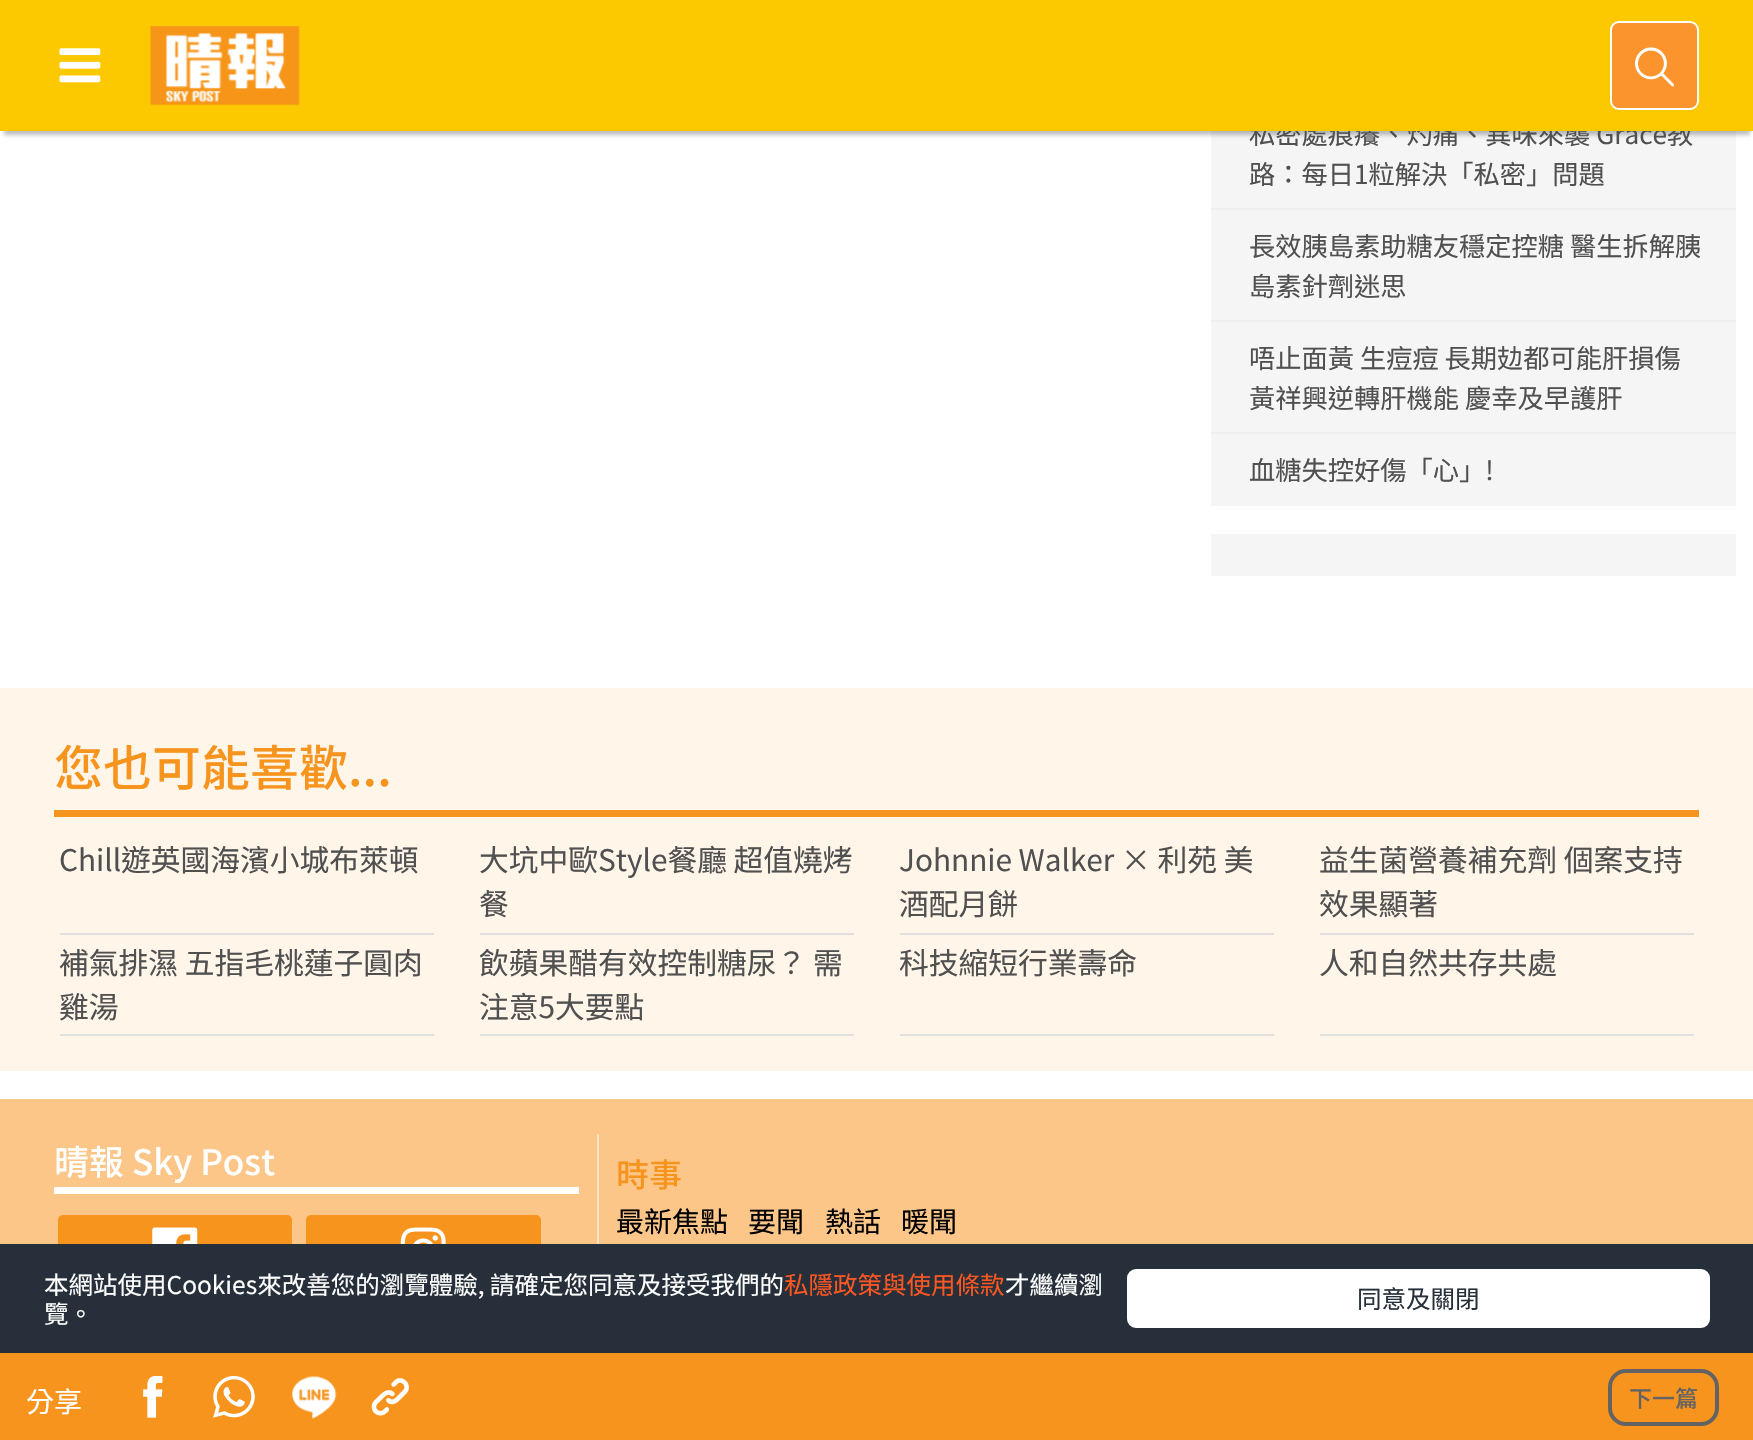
static SkFont makeFont(const char* family, int weight, float size, bool italic = false) {
  SkFontStyle style(weight, SkFontStyle::kNormal_Width,
    italic ? SkFontStyle::kItalic_Slant : SkFontStyle::kUpright_Slant);
  SkFont result(fontMgr->matchFamilyStyle(family, style), size);
  result.setSubpixel(true);
  return result;
}

static void text(SkCanvas* c, const char* s, float x, float y, const SkFont& font, SkColor color) {
  SkPaint ink(SkColor4f::FromColor(color));
  ink.setAntiAlias(true);
  c->drawString(s, x, y, font, ink);
}

static void box(SkCanvas* c, float l, float t, float r, float b, SkColor color) {
  SkPaint ink(SkColor4f::FromColor(color));
  ink.setAntiAlias(true);
  c->drawRect(SkRect::MakeLTRB(l, t, r, b), ink);
}

static void roundBox(SkCanvas* c, float l, float t, float r, float b, float radius, SkColor color) {
  SkPaint ink(SkColor4f::FromColor(color));
  ink.setAntiAlias(true);
  c->drawRoundRect(SkRect::MakeLTRB(l, t, r, b), radius, radius, ink);
}

static void picture(SkCanvas* c, const char* path, float l, float t, float r, float b) {
  auto image = SkImages::DeferredFromEncodedData(SkData::MakeFromFileName(path));
  c->drawImageRect(image, SkRect::MakeLTRB(l, t, r, b), SkSamplingOptions());
}

void draw(SkCanvas* c) {
  SkPaint paint;
  paint.setAntiAlias(true);
  c->clear(0xffffffff);
  box(c, 1211, 131, 1736, 506, 0xfff5f5f5);
  paint.setColor(0x40000000);
  paint.setMaskFilter(SkMaskFilter::MakeBlur(kNormal_SkBlurStyle, 2));
  c->drawRect(SkRect::MakeLTRB(4, 11, 1750, 135), paint);
  paint.setMaskFilter(nullptr);
  SkFont face1 = makeFont("Noto Sans TC", 100, 26.25f);
  text(c, "私密處痕癢、灼痛、異味來襲 Grace教", 1249, 144, face1, 0xff505050);
  box(c, 0, 0, 1753, 131, 0xfffcc800);
  picture(c, "img_01.png", 59, 48, 101, 83);
  picture(c, "img_02.png", 150, 26, 300, 106);
  paint.setColor(0xfffc942e);
  c->drawRoundRect(SkRect::MakeLTRB(1611, 22, 1698, 109), 8, 8, paint);
  paint.setStyle(SkPaint::kStroke_Style);
  paint.setStrokeWidth(2);
  paint.setColor(0xffffffff);
  c->drawRoundRect(SkRect::MakeLTRB(1611, 22, 1698, 109), 8, 8, paint);
  picture(c, "img_03.png", 1635, 47, 1674, 87);
  box(c, 1211, 208, 1736, 210, 0xffeeeeee);
  text(c, "路：每日1粒解決「私密」問題", 1249, 184, face1, 0xff505050);
  box(c, 1211, 320, 1736, 322, 0xffeeeeee);
  text(c, "長效胰島素助糖友穩定控糖 醫生拆解胰", 1249, 256, face1, 0xff505050);
  text(c, "島素針劑迷思", 1249, 296, face1, 0xff505050);
  box(c, 1211, 432, 1736, 434, 0xffeeeeee);
  text(c, "唔止面黃 生痘痘 長期攰都可能肝損傷", 1249, 368, face1, 0xff505050);
  text(c, "黃祥興逆轉肝機能 慶幸及早護肝", 1249, 408, face1, 0xff505050);
  text(c, "血糖失控好傷「心」!", 1249, 480, face1, 0xff505050);
  box(c, 1211, 534, 1736, 576, 0xfff5f5f5);
  box(c, 0, 688, 1753, 1071, 0xfffff5e9);
  box(c, 54, 810, 1699, 817, 0xfff7941e);
  SkFont face2 = makeFont("Noto Sans TC", 500, 49);
  text(c, "您也可能喜歡...", 54, 786, face2, 0xfff7941e);
  box(c, 60, 933, 434, 935, 0xffe0e0e0);
  SkFont face3 = makeFont("Noto Sans TC", 100, 29.75f);
  text(c, "Chill遊英國海濱小城布萊頓", 59, 871, face3, 0xff505050);
  box(c, 480, 933, 854, 935, 0xffe0e0e0);
  text(c, "大坑中歐Style餐廳 超值燒烤", 479, 871, face3, 0xff505050);
  text(c, "餐", 479, 915, face3, 0xff505050);
  box(c, 900, 933, 1274, 935, 0xffe0e0e0);
  text(c, "Johnnie Walker × 利苑 美", 899, 871, face3, 0xff505050);
  text(c, "酒配月餅", 899, 915, face3, 0xff505050);
  box(c, 1320, 933, 1694, 935, 0xffe0e0e0);
  text(c, "益生菌營養補充劑 個案支持", 1319, 871, face3, 0xff505050);
  text(c, "效果顯著", 1319, 915, face3, 0xff505050);
  box(c, 60, 1034, 434, 1036, 0xffe0e0e0);
  text(c, "補氣排濕 五指毛桃蓮子圓肉", 59, 974, face3, 0xff505050);
  text(c, "雞湯", 59, 1018, face3, 0xff505050);
  box(c, 480, 1034, 854, 1036, 0xffe0e0e0);
  text(c, "飲蘋果醋有效控制糖尿？ 需", 479, 974, face3, 0xff505050);
  text(c, "注意5大要點", 479, 1018, face3, 0xff505050);
  box(c, 900, 1034, 1274, 1036, 0xffe0e0e0);
  text(c, "科技縮短行業壽命", 899, 974, face3, 0xff505050);
  box(c, 1320, 1034, 1694, 1036, 0xffe0e0e0);
  text(c, "人和自然共存共處", 1319, 974, face3, 0xff505050);
  box(c, 0, 1099, 1753, 1244, 0xfffdc689);
  box(c, 54, 1187, 579, 1194, 0xffffffff);
  SkFont face4 = makeFont("Noto Sans TC", 500, 35);
  text(c, "晴報 Sky Post", 54, 1175, face4, 0xffffffff);
  roundBox(c, 58, 1215, 292, 1285, 5, 0xfff7941e);
  picture(c, "img_04.png", 152, 1227, 198, 1244);
  roundBox(c, 306, 1215, 541, 1285, 5, 0xfff7941e);
  picture(c, "img_05.png", 400, 1227, 446, 1244);
  box(c, 597, 1134, 599, 1244, 0xfffee3c4);
  SkFont face5 = makeFont("Noto Sans TC", 500, 33);
  text(c, "時事", 616, 1187, face5, 0xfff7941e);
  SkFont face6 = makeFont("Noto Sans TC", 100, 28);
  text(c, "最新焦點", 616, 1232, face6, 0xff000000);
  text(c, "要聞", 748, 1232, face6, 0xff000000);
  text(c, "熱話", 825, 1232, face6, 0xff000000);
  text(c, "暖聞", 901, 1232, face6, 0xff000000);
  box(c, 0, 1353, 1753, 1440, 0xfff7941e);
  text(c, "分享", 26, 1412, face6, 0xffffffff);
  picture(c, "img_06.png", 143, 1376, 163, 1418);
  picture(c, "img_07.png", 213, 1376, 255, 1418);
  picture(c, "img_08.png", 292, 1376, 337, 1419);
  picture(c, "img_09.png", 371, 1378, 409, 1416);
  paint.setStrokeWidth(4);
  paint.setColor(0xff636363);
  c->drawRoundRect(SkRect::MakeLTRB(1610, 1371, 1717, 1424), 16, 16, paint);
  SkFont face7 = makeFont("Noto Sans TC", 500, 23);
  text(c, "下一篇", 1629, 1407, face7, 0xff636363);
  box(c, 0, 1244, 1753, 1353, 0xff262f3a);
  SkFont face8 = makeFont("Noto Sans TC", 100, 24.5f);
  text(c, "本網站使用Cookies來改善您的瀏覽體驗, 請確定您同意及接受我們的", 44, 1294, face8, 0xffffffff);
  text(c, "私隱政策與使用條款", 784, 1294, face8, 0xffff5722);
  text(c, "才繼續瀏", 1005, 1294, face8, 0xffffffff);
  text(c, "覽。", 44, 1323, face8, 0xffffffff);
  paint.setStyle(SkPaint::kFill_Style);
  paint.setColor(0xffffffff);
  c->drawRoundRect(SkRect::MakeLTRB(1128, 1270, 1709, 1327), 8, 8, paint);
  paint.setStyle(SkPaint::kStroke_Style);
  paint.setStrokeWidth(2);
  c->drawRoundRect(SkRect::MakeLTRB(1128, 1270, 1709, 1327), 8, 8, paint);
  text(c, "同意及關閉", 1357, 1308, face8, 0xff262f3a);
}
